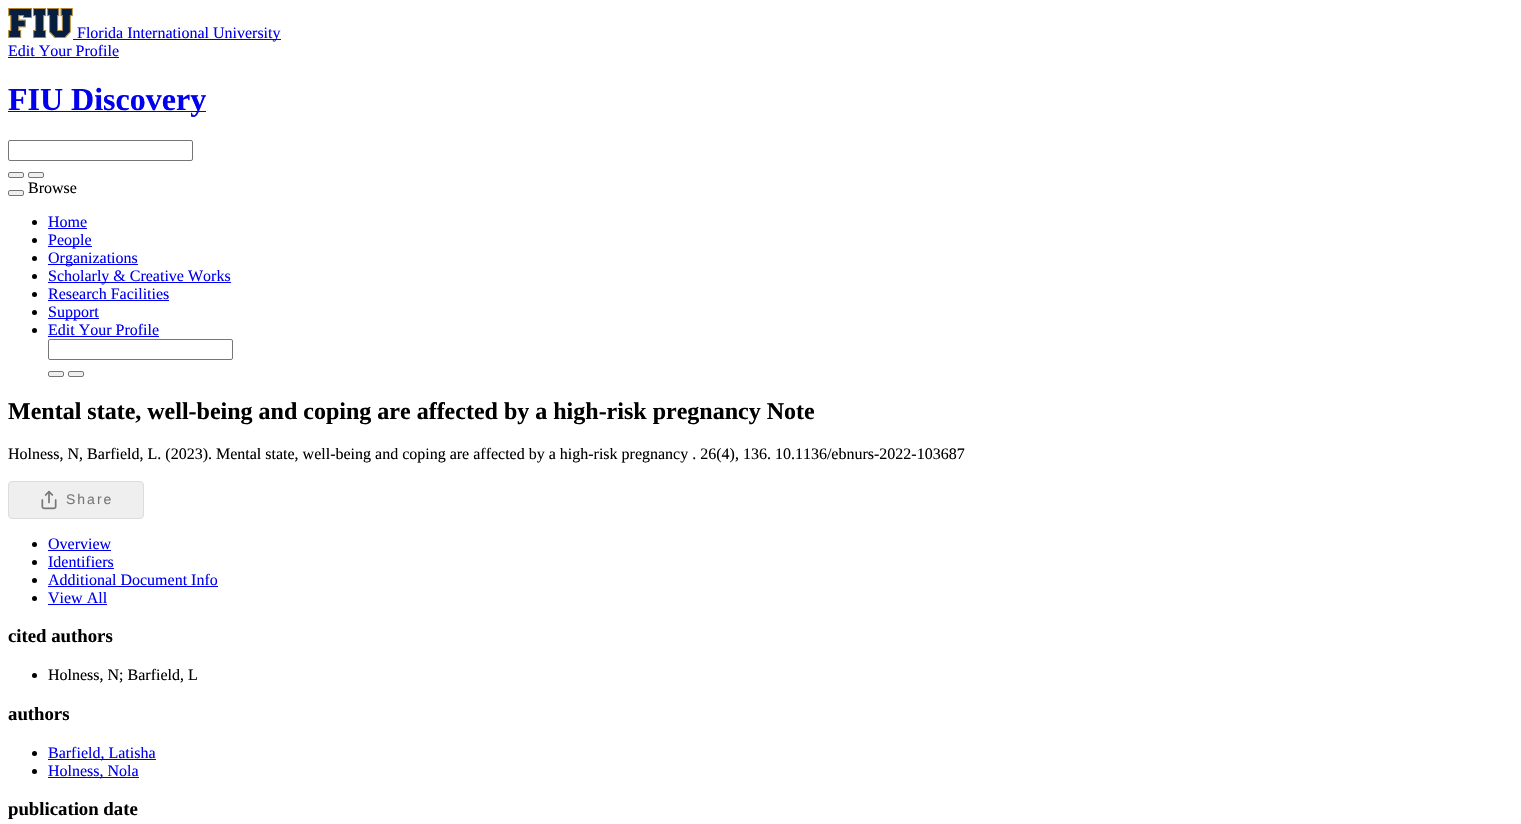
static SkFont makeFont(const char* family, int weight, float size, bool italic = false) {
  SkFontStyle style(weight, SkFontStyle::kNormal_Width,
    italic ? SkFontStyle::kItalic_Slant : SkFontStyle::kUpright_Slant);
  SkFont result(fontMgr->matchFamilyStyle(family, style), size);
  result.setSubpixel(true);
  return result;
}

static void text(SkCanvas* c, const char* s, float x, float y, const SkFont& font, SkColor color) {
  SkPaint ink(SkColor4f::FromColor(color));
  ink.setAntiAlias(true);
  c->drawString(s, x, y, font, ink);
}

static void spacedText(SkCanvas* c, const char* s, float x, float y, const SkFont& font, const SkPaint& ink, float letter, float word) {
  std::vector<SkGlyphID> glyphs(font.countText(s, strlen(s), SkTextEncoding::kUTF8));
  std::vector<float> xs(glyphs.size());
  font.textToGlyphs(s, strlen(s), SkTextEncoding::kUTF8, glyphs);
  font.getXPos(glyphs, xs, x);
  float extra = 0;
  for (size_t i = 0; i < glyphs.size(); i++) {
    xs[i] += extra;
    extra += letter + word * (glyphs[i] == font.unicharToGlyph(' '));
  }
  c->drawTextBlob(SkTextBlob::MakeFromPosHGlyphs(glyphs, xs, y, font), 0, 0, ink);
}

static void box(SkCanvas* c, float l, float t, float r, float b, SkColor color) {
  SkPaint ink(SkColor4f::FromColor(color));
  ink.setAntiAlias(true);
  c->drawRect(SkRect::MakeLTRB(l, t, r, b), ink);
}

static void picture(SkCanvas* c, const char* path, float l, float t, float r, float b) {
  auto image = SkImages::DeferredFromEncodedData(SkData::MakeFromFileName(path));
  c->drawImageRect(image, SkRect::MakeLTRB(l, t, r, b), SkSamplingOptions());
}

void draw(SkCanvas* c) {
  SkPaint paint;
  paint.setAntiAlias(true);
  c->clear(0xffffffff);
  picture(c, "img_01.png", 8, 8, 73, 38);
  box(c, 73, 39, 281, 40, 0xff0000ee);
  SkFont face1 = makeFont("Liberation Serif", 400, 16);
  text(c, "Florida International University", 77, 38, face1, 0xff0000ee);
  text(c, "Edit Your Profile", 8, 56, face1, 0xff0000ee);
  box(c, 8, 57, 119, 58, 0xff0000ee);
  box(c, 8, 111, 206, 112, 0xff0000ee);
  SkFont face2 = makeFont("Liberation Serif", 700, 32);
  text(c, "FIU Discovery", 8, 110, face2, 0xff0000ee);
  paint.setStyle(SkPaint::kStroke_Style);
  paint.setStrokeWidth(1);
  paint.setColor(0xff767676);
  c->drawRoundRect(SkRect::MakeLTRB(8.5f, 140.5f, 192.5f, 160.5f), 1.5f, 1.5f, paint);
  paint.setStyle(SkPaint::kFill_Style);
  paint.setColor(0xffefefef);
  c->drawRoundRect(SkRect::MakeLTRB(8.5f, 172.5f, 23.5f, 177.5f), 1.5f, 1.5f, paint);
  paint.setStyle(SkPaint::kStroke_Style);
  paint.setColor(0xff767676);
  c->drawRoundRect(SkRect::MakeLTRB(8.5f, 172.5f, 23.5f, 177.5f), 1.5f, 1.5f, paint);
  paint.setStyle(SkPaint::kFill_Style);
  paint.setColor(0xffefefef);
  c->drawRoundRect(SkRect::MakeLTRB(28.5f, 172.5f, 43.5f, 177.5f), 1.5f, 1.5f, paint);
  paint.setStyle(SkPaint::kStroke_Style);
  paint.setColor(0xff767676);
  c->drawRoundRect(SkRect::MakeLTRB(28.5f, 172.5f, 43.5f, 177.5f), 1.5f, 1.5f, paint);
  paint.setStyle(SkPaint::kFill_Style);
  paint.setColor(0xffefefef);
  c->drawRoundRect(SkRect::MakeLTRB(8.5f, 190.5f, 23.5f, 195.5f), 1.5f, 1.5f, paint);
  paint.setStyle(SkPaint::kStroke_Style);
  paint.setColor(0xff767676);
  c->drawRoundRect(SkRect::MakeLTRB(8.5f, 190.5f, 23.5f, 195.5f), 1.5f, 1.5f, paint);
  text(c, "Browse", 28, 193, face1, 0xff000000);
  paint.setStyle(SkPaint::kFill_Style);
  paint.setColor(0xff000000);
  c->drawCircle(34.5f, 222.5f, 2.5f, paint);
  text(c, "Home", 48, 227, face1, 0xff0000ee);
  box(c, 48, 228, 87, 229, 0xff0000ee);
  c->drawCircle(34.5f, 240.5f, 2.5f, paint);
  box(c, 48, 246, 92, 247, 0xff0000ee);
  text(c, "People", 48, 245, face1, 0xff0000ee);
  c->drawCircle(34.5f, 258.5f, 2.5f, paint);
  box(c, 48, 264, 138, 265, 0xff0000ee);
  text(c, "Organizations", 48, 263, face1, 0xff0000ee);
  c->drawCircle(34.5f, 276.5f, 2.5f, paint);
  box(c, 48, 282, 231, 283, 0xff0000ee);
  text(c, "Scholarly & Creative Works", 48, 281, face1, 0xff0000ee);
  c->drawCircle(34.5f, 294.5f, 2.5f, paint);
  text(c, "Research Facilities", 48, 299, face1, 0xff0000ee);
  box(c, 48, 300, 169, 301, 0xff0000ee);
  c->drawCircle(34.5f, 312.5f, 2.5f, paint);
  box(c, 48, 318, 99, 319, 0xff0000ee);
  text(c, "Support", 48, 317, face1, 0xff0000ee);
  c->drawCircle(34.5f, 330.5f, 2.5f, paint);
  text(c, "Edit Your Profile", 48, 335, face1, 0xff0000ee);
  box(c, 48, 336, 159, 337, 0xff0000ee);
  paint.setStyle(SkPaint::kStroke_Style);
  paint.setColor(0xff767676);
  c->drawRoundRect(SkRect::MakeLTRB(48.5f, 339.5f, 232.5f, 359.5f), 1.5f, 1.5f, paint);
  paint.setStyle(SkPaint::kFill_Style);
  paint.setColor(0xffefefef);
  c->drawRoundRect(SkRect::MakeLTRB(48.5f, 371.5f, 63.5f, 376.5f), 1.5f, 1.5f, paint);
  paint.setStyle(SkPaint::kStroke_Style);
  paint.setColor(0xff767676);
  c->drawRoundRect(SkRect::MakeLTRB(48.5f, 371.5f, 63.5f, 376.5f), 1.5f, 1.5f, paint);
  paint.setStyle(SkPaint::kFill_Style);
  paint.setColor(0xffefefef);
  c->drawRoundRect(SkRect::MakeLTRB(68.5f, 371.5f, 83.5f, 376.5f), 1.5f, 1.5f, paint);
  paint.setStyle(SkPaint::kStroke_Style);
  paint.setColor(0xff767676);
  c->drawRoundRect(SkRect::MakeLTRB(68.5f, 371.5f, 83.5f, 376.5f), 1.5f, 1.5f, paint);
  SkFont face3 = makeFont("Liberation Serif", 700, 24);
  text(c, "Mental state, well-being and coping are affected by a high-risk pregnancy Note", 8, 419, face3, 0xff000000);
  text(c, "Holness, N, Barfield, L. (2023). Mental state, well-being and coping are affected by a high-risk pregnancy . 26(4), 136. 10.1136/ebnurs-2022-103687", 8, 459, face1, 0xff000000);
  paint.setStyle(SkPaint::kFill_Style);
  paint.setColor(0xffefefef);
  c->drawRoundRect(SkRect::MakeLTRB(8.5f, 481.5f, 143.5f, 518.5f), 3.5f, 3.5f, paint);
  paint.setStyle(SkPaint::kStroke_Style);
  paint.setColor(0xffdddddd);
  c->drawRoundRect(SkRect::MakeLTRB(8.5f, 481.5f, 143.5f, 518.5f), 3.5f, 3.5f, paint);
  picture(c, "img_02.png", 41, 490, 57, 510);
  SkFont face4 = makeFont("Liberation Sans", 400, 14);
  paint.setStyle(SkPaint::kFill_Style);
  paint.setColor(0xff777777);
  spacedText(c, "Share", 66, 504, face4, paint, 2, 0);
  paint.setColor(0xff000000);
  c->drawCircle(34.5f, 544.5f, 2.5f, paint);
  text(c, "Overview", 48, 549, face1, 0xff0000ee);
  box(c, 48, 550, 111, 551, 0xff0000ee);
  c->drawCircle(34.5f, 562.5f, 2.5f, paint);
  text(c, "Identifiers", 48, 567, face1, 0xff0000ee);
  box(c, 48, 568, 114, 569, 0xff0000ee);
  c->drawCircle(34.5f, 580.5f, 2.5f, paint);
  text(c, "Additional Document Info", 48, 585, face1, 0xff0000ee);
  box(c, 48, 586, 218, 587, 0xff0000ee);
  c->drawCircle(34.5f, 598.5f, 2.5f, paint);
  text(c, "View All", 48, 603, face1, 0xff0000ee);
  box(c, 48, 604, 107, 605, 0xff0000ee);
  SkFont face5 = makeFont("Liberation Serif", 700, 18.75f);
  text(c, "cited authors", 8, 642, face5, 0xff000000);
  c->drawCircle(34.5f, 675.5f, 2.5f, paint);
  text(c, "Holness, N; Barfield, L", 48, 680, face1, 0xff000000);
  text(c, "authors", 8, 720, face5, 0xff000000);
  c->drawCircle(34.5f, 753.5f, 2.5f, paint);
  box(c, 48, 759, 156, 760, 0xff0000ee);
  text(c, "Barfield, Latisha", 48, 758, face1, 0xff0000ee);
  c->drawCircle(34.5f, 771.5f, 2.5f, paint);
  box(c, 48, 777, 139, 778, 0xff0000ee);
  text(c, "Holness, Nola", 48, 776, face1, 0xff0000ee);
  text(c, "publication date", 8, 815, face5, 0xff000000);
}
